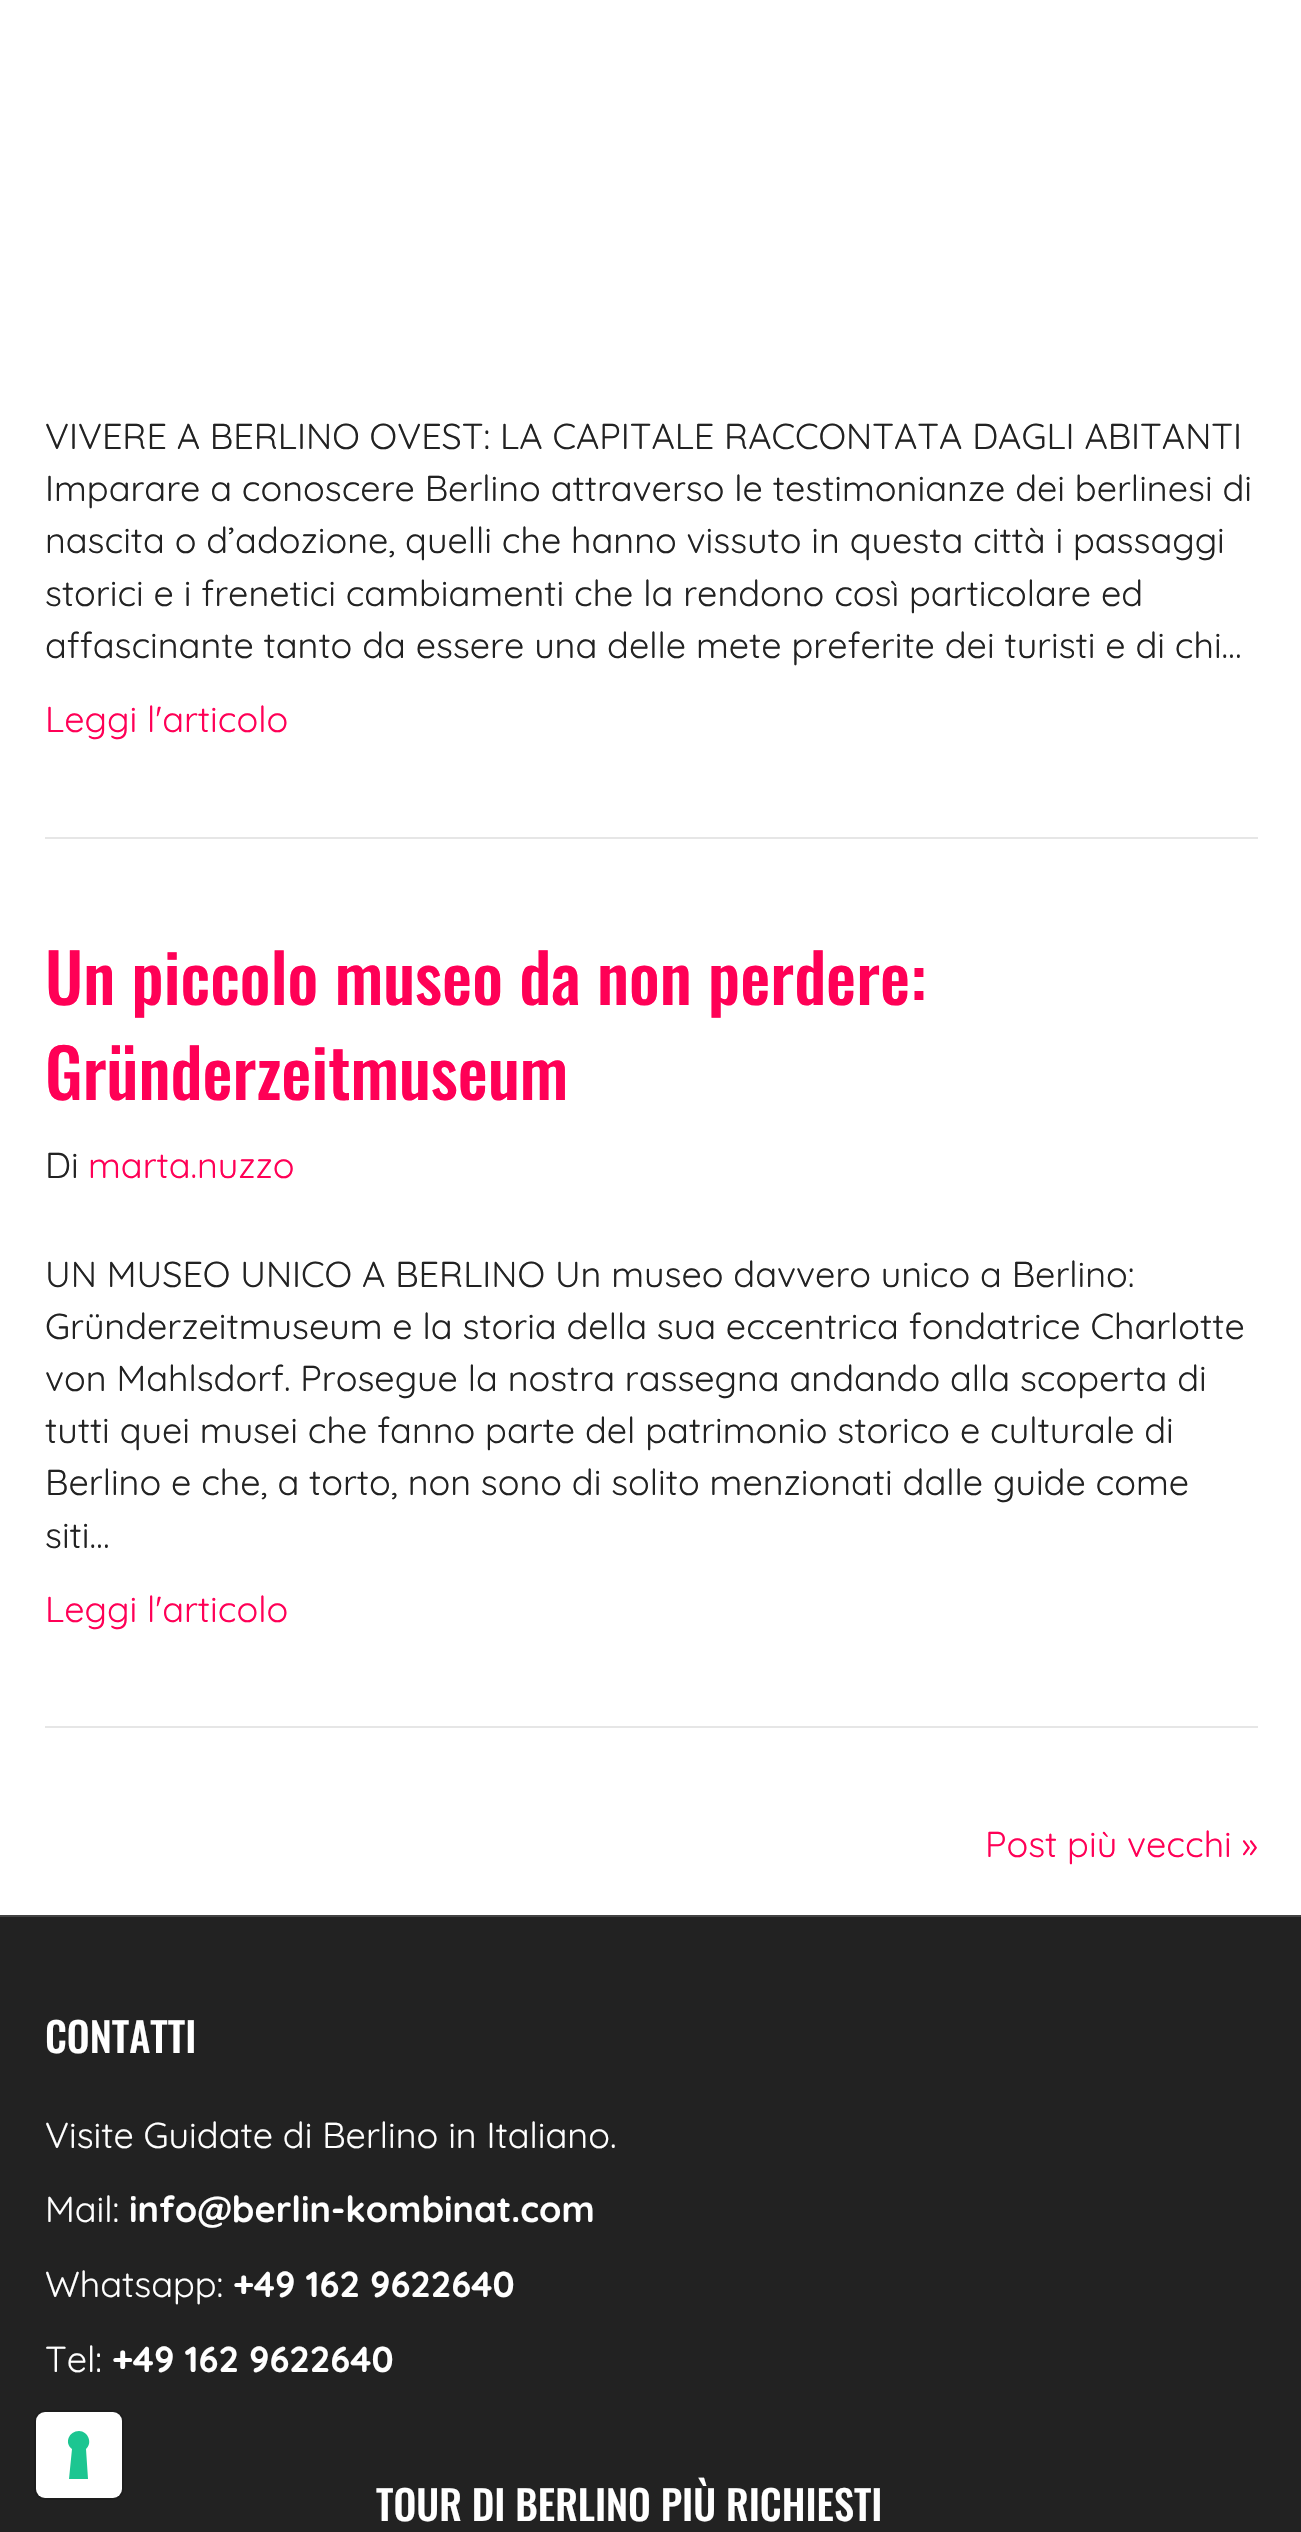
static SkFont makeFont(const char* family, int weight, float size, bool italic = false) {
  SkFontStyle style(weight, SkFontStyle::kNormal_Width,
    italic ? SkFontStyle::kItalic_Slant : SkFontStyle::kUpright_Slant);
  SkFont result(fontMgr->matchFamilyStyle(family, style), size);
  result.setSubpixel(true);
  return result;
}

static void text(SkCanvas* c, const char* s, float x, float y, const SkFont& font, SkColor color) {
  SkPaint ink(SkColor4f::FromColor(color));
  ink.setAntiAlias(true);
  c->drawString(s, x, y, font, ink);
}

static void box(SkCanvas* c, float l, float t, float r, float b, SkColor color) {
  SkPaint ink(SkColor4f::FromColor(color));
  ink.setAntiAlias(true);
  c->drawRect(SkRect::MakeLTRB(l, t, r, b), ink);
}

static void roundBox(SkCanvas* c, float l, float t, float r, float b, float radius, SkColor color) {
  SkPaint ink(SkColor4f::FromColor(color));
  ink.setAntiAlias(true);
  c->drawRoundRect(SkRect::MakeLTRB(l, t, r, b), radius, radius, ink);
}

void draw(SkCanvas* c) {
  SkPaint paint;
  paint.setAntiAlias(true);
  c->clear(0xffffffff);
  box(c, 45, 837, 1258, 839, 0xffe6e6e6);
  SkFont face1 = makeFont("Quicksand", 400, 36);
  text(c, "VIVERE A BERLINO OVEST: LA CAPITALE RACCONTATA DAGLI ABITANTI", 45, 449, face1, 0xff222222);
  text(c, "Imparare a conoscere Berlino attraverso le testimonianze dei berlinesi di", 45, 501, face1, 0xff222222);
  text(c, "nascita o d’adozione, quelli che hanno vissuto in questa città i passaggi", 45, 553, face1, 0xff222222);
  text(c, "storici e i frenetici cambiamenti che la rendono così particolare ed", 45, 606, face1, 0xff222222);
  text(c, "affascinante tanto da essere una delle mete preferite dei turisti e di chi…", 45, 658, face1, 0xff222222);
  text(c, "Leggi l'articolo", 45, 732, face1, 0xffff0056);
  box(c, 45, 1726, 1258, 1728, 0xffe6e6e6);
  SkFont face2 = makeFont("Oswald", 500, 67.5f);
  text(c, "Un piccolo museo da non perdere:", 45, 1005, face2, 0xffff0056);
  text(c, "Gründerzeitmuseum", 45, 1100, face2, 0xffff0056);
  text(c, "Di", 45, 1178, face1, 0xff222222);
  text(c, "marta.nuzzo", 88, 1178, face1, 0xffff0056);
  text(c, "UN MUSEO UNICO A BERLINO Un museo davvero unico a Berlino:", 45, 1287, face1, 0xff222222);
  text(c, "Gründerzeitmuseum e la storia della sua eccentrica fondatrice Charlotte", 45, 1339, face1, 0xff222222);
  text(c, "von Mahlsdorf. Prosegue la nostra rassegna andando alla scoperta di", 45, 1391, face1, 0xff222222);
  text(c, "tutti quei musei che fanno parte del patrimonio storico e culturale di", 45, 1443, face1, 0xff222222);
  text(c, "Berlino e che, a torto, non sono di solito menzionati dalle guide come", 45, 1495, face1, 0xff222222);
  text(c, "siti…", 45, 1548, face1, 0xff222222);
  text(c, "Leggi l'articolo", 45, 1622, face1, 0xffff0056);
  text(c, "Post più vecchi »", 985, 1857, face1, 0xffff0056);
  box(c, 0, 1917, 1301, 2532, 0xff222222);
  box(c, 0, 1915, 1301, 1917, 0xff434343);
  SkFont face3 = makeFont("Oswald", 500, 40.5f);
  text(c, "CONTATTI", 45, 2053, face3, 0xffffffff);
  text(c, "Visite Guidate di Berlino in Italiano.", 45, 2148, face1, 0xffffffff);
  text(c, "Mail:", 45, 2222, face1, 0xffffffff);
  SkFont face4 = makeFont("Quicksand", 700, 36);
  text(c, "info@berlin-kombinat.com", 129, 2222, face4, 0xffffffff);
  text(c, "Whatsapp:", 45, 2297, face1, 0xffffffff);
  text(c, "+49 162 9622640", 233, 2297, face4, 0xffffffff);
  text(c, "Tel:", 45, 2372, face1, 0xffffffff);
  text(c, "+49 162 9622640", 112, 2372, face4, 0xffffffff);
  text(c, "TOUR DI BERLINO PIÙ RICHIESTI", 376, 2521, face3, 0xffffffff);
  paint.setStyle(SkPaint::kStroke_Style);
  paint.setStrokeWidth(2);
  paint.setColor(0xff1d1d1d);
  c->drawRoundRect(SkRect::MakeLTRB(35, 2411, 123, 2499), 10, 10, paint);
  roundBox(c, 36, 2412, 122, 2498, 9, 0xffffffff);
  paint.setStyle(SkPaint::kFill_Style);
  paint.setColor(0xff1cc691);
  c->drawPath(SkPathBuilder(SkPathFillType::kEvenOdd).moveTo(79, 2431).cubicTo(88, 2431, 93, 2443, 86, 2449).lineTo(88, 2479).lineTo(69, 2479).lineTo(72, 2449).cubicTo(64, 2443, 69, 2431, 79, 2431).close().detach(), paint);
}
